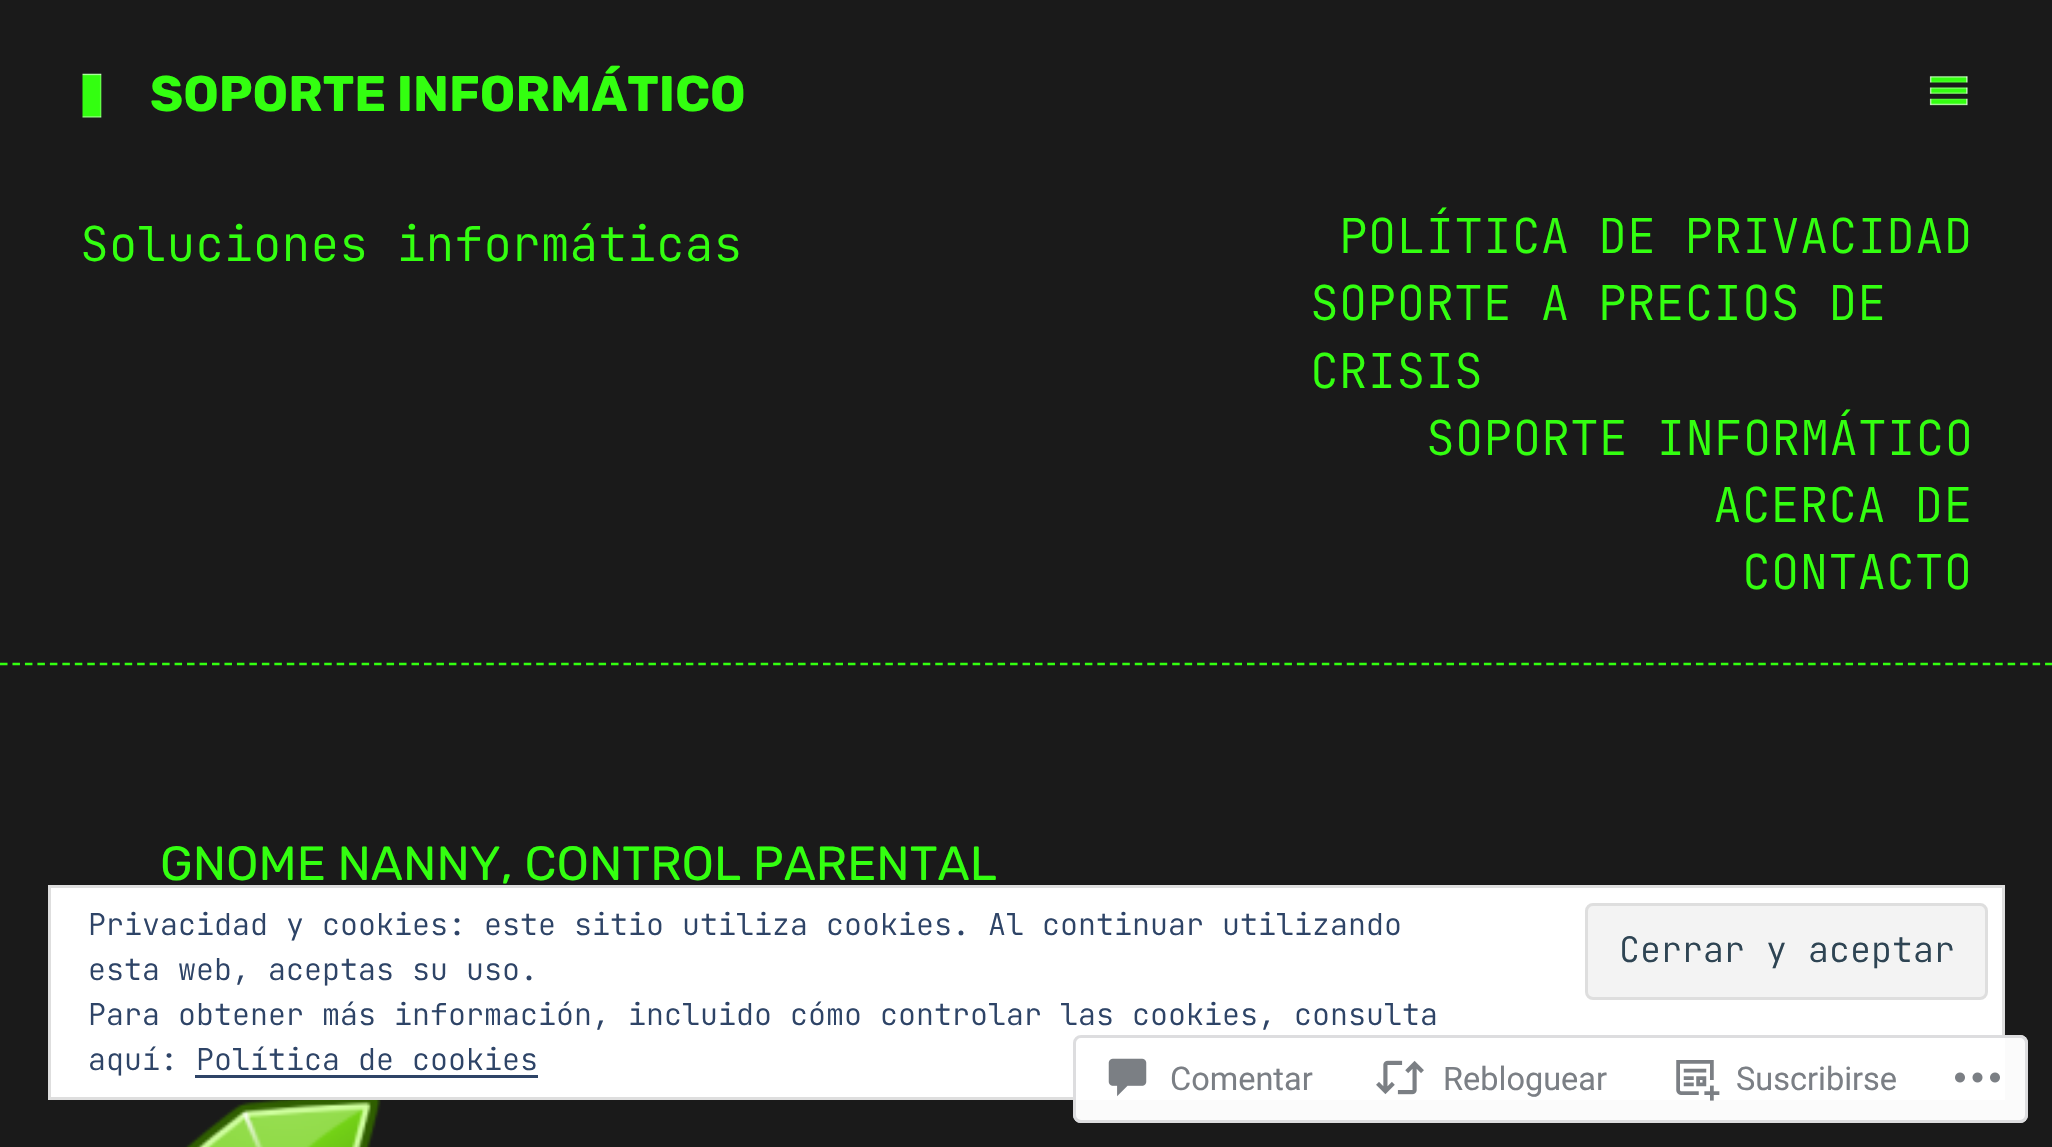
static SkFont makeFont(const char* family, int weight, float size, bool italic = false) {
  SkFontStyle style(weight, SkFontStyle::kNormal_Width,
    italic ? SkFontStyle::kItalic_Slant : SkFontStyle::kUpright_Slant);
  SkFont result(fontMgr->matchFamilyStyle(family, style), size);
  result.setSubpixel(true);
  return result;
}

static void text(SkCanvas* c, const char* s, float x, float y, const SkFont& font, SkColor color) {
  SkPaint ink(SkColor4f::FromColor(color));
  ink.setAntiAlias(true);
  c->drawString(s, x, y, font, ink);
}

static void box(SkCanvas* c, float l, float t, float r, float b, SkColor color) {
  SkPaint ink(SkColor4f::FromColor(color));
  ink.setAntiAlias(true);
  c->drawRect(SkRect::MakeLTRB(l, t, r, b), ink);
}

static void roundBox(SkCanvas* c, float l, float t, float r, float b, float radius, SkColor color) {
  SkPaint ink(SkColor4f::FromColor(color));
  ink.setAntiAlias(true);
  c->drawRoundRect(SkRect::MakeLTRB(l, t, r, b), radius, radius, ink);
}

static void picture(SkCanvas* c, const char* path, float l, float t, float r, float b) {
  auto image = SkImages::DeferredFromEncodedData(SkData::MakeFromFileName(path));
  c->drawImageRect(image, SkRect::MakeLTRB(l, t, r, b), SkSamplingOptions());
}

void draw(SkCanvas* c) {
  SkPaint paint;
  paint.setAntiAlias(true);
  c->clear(0xff1a1a1a);
  paint.setStyle(SkPaint::kStroke_Style);
  paint.setStrokeWidth(2.5f);
  paint.setColor(0xff33ff10);
  paint.setPathEffect(SkDashPathEffect::Make({{7.5f, 4.97f}}, 0));
  c->drawPath(SkPathBuilder().moveTo(0, 664).lineTo(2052.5f, 664).detach(), paint);
  paint.setPathEffect(nullptr);
  picture(c, "img_01.png", 82, 73, 102, 118);
  SkFont face1 = makeFont("Rubik", 700, 50);
  text(c, "SOPORTE INFORMÁTICO", 150, 111, face1, 0xff33ff10);
  SkFont face2 = makeFont("JetBrains Mono", 300, 48);
  text(c, "Soluciones informáticas", 80, 261, face2, 0xff33ff10);
  picture(c, "img_02.png", 1929, 76, 1968, 106);
  text(c, "POLÍTICA DE PRIVACIDAD", 1339, 253, face2, 0xff33ff10);
  text(c, "SOPORTE A PRECIOS DE", 1310, 320, face2, 0xff33ff10);
  text(c, "CRISIS", 1310, 388, face2, 0xff33ff10);
  text(c, "SOPORTE INFORMÁTICO", 1426, 455, face2, 0xff33ff10);
  text(c, "ACERCA DE", 1713, 522, face2, 0xff33ff10);
  text(c, "CONTACTO", 1742, 589, face2, 0xff33ff10);
  SkFont face3 = makeFont("Rubik", 400, 48);
  text(c, "GNOME NANNY, CONTROL PARENTAL", 160, 880, face3, 0xff33ff10);
  picture(c, "img_03.png", 185, 1100, 381, 1147);
  paint.setStyle(SkPaint::kFill_Style);
  paint.setColor(0xffffffff);
  c->drawRect(SkRect::MakeLTRB(49.5f, 886.5f, 2003.5f, 1098.5f), paint);
  paint.setStyle(SkPaint::kStroke_Style);
  paint.setStrokeWidth(3);
  paint.setColor(0xffdedede);
  c->drawRect(SkRect::MakeLTRB(49.5f, 886.5f, 2003.5f, 1098.5f), paint);
  SkFont face4 = makeFont("JetBrains Mono", 300, 30);
  text(c, "Privacidad y cookies: este sitio utiliza cookies. Al continuar utilizando", 88, 935, face4, 0xff2e4467);
  paint.setStyle(SkPaint::kFill_Style);
  paint.setColor(0xfff3f3f3);
  c->drawRoundRect(SkRect::MakeLTRB(1586.5f, 904.5f, 1986.5f, 998.5f), 6.5f, 6.5f, paint);
  paint.setStyle(SkPaint::kStroke_Style);
  paint.setColor(0xffdedede);
  c->drawRoundRect(SkRect::MakeLTRB(1586.5f, 904.5f, 1986.5f, 998.5f), 6.5f, 6.5f, paint);
  SkFont face5 = makeFont("JetBrains Mono", 300, 35);
  text(c, "Cerrar y aceptar", 1619, 962, face5, 0xff2e4453);
  text(c, "esta web, aceptas su uso.", 88, 980, face4, 0xff2e4467);
  text(c, "Para obtener más información, incluido cómo controlar las cookies, consulta", 88, 1025, face4, 0xff2e4467);
  text(c, "aquí: Política de cookies", 88, 1070, face4, 0xff2e4467);
  box(c, 195, 1075, 538, 1078, 0xff2e4467);
  roundBox(c, 1073, 1035, 2028, 1123, 8, 0xfaffffff);
  paint.setColor(0xfadcdcde);
  c->drawRoundRect(SkRect::MakeLTRB(1074.5f, 1036.5f, 2026.5f, 1121.5f), 6.5f, 6.5f, paint);
  picture(c, "img_04.png", 1108, 1058, 1147, 1097);
  SkFont face6 = makeFont("Roboto", 400, 32.5f);
  text(c, "Comentar", 1170, 1090, face6, 0xff7b7f85);
  picture(c, "img_05.png", 1376, 1060, 1424, 1095);
  text(c, "Rebloguear", 1443, 1090, face6, 0xff7b7f85);
  picture(c, "img_06.png", 1676, 1060, 1720, 1101);
  text(c, "Suscribirse", 1736, 1090, face6, 0xff7b7f85);
  picture(c, "img_07.png", 1955, 1072, 2000, 1083);
}
